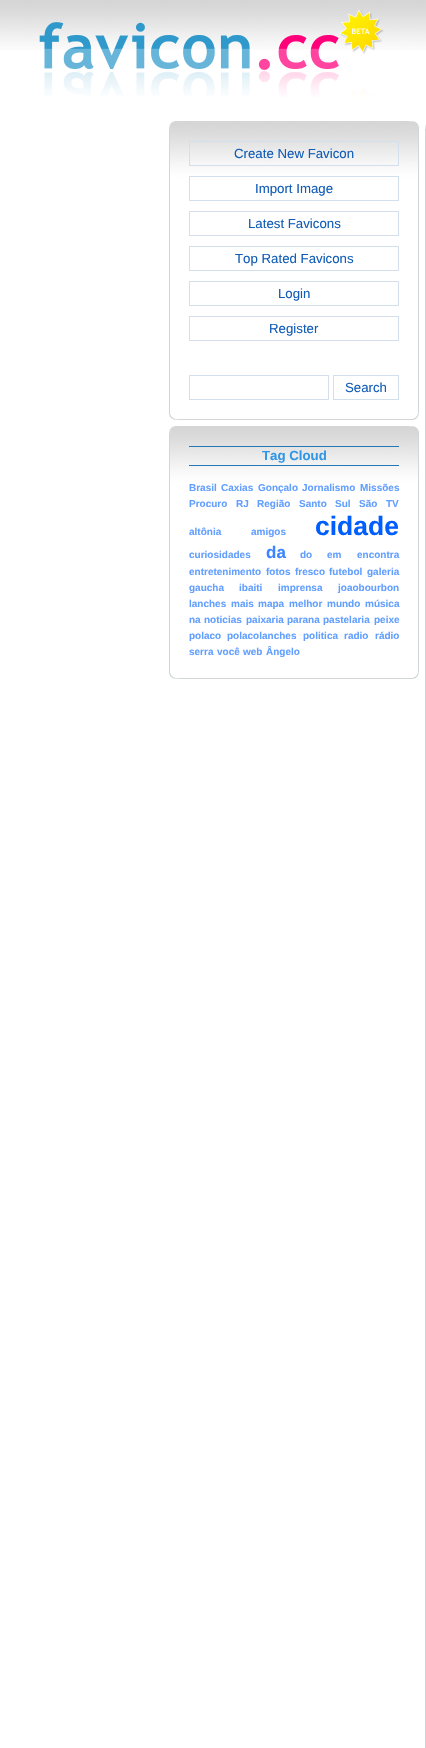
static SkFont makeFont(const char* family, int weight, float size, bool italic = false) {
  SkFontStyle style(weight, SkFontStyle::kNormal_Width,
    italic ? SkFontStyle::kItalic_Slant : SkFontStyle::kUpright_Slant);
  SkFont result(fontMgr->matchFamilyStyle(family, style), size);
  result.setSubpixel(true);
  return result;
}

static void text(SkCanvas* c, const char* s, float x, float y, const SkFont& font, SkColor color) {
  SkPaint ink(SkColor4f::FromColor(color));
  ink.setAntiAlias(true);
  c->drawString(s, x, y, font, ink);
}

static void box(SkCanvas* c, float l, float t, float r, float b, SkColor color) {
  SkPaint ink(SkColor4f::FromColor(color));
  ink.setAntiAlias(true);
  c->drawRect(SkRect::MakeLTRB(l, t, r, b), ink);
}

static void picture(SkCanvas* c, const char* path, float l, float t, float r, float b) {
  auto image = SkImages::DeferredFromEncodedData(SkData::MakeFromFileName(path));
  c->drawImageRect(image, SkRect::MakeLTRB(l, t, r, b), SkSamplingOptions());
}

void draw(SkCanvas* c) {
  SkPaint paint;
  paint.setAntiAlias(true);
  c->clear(0xffffffff);
  picture(c, "img_01.png", 0, 0, 426, 50);
  picture(c, "img_02.png", 39, 10, 384, 111);
  picture(c, "img_03.png", 170, 121, 418, 419);
  box(c, 179, 419, 419, 420, 0xffd2d6d6);
  box(c, 169, 125, 170, 419, 0xffd2d6d6);
  box(c, 418, 125, 419, 419, 0xffd2d6d6);
  picture(c, "img_04.png", 413, 412, 419, 420);
  picture(c, "img_05.png", 169, 121, 176, 129);
  picture(c, "img_06.png", 409, 121, 419, 127);
  picture(c, "img_07.png", 169, 414, 179, 420);
  paint.setStyle(SkPaint::kStroke_Style);
  paint.setStrokeWidth(1);
  paint.setColor(0xffd3dfed);
  c->drawRect(SkRect::MakeLTRB(189.5f, 141.5f, 398.5f, 165.5f), paint);
  SkFont face1 = makeFont("Liberation Sans", 400, 13.25f);
  text(c, "Create New Favicon", 234, 158, face1, 0xff105cb6);
  c->drawRect(SkRect::MakeLTRB(189.5f, 176.5f, 398.5f, 200.5f), paint);
  text(c, "Import Image", 255, 193, face1, 0xff105cb6);
  c->drawRect(SkRect::MakeLTRB(189.5f, 211.5f, 398.5f, 235.5f), paint);
  text(c, "Latest Favicons", 248, 228, face1, 0xff105cb6);
  c->drawRect(SkRect::MakeLTRB(189.5f, 246.5f, 398.5f, 270.5f), paint);
  text(c, "Top Rated Favicons", 235, 263, face1, 0xff105cb6);
  c->drawRect(SkRect::MakeLTRB(189.5f, 281.5f, 398.5f, 305.5f), paint);
  text(c, "Login", 278, 298, face1, 0xff105cb6);
  c->drawRect(SkRect::MakeLTRB(189.5f, 316.5f, 398.5f, 340.5f), paint);
  text(c, "Register", 269, 333, face1, 0xff105cb6);
  c->drawRect(SkRect::MakeLTRB(189.5f, 375.5f, 328.5f, 399.5f), paint);
  c->drawRect(SkRect::MakeLTRB(333.5f, 375.5f, 398.5f, 399.5f), paint);
  text(c, "Search", 345, 392, face1, 0xff105cb6);
  picture(c, "img_08.png", 170, 426, 418, 678);
  box(c, 179, 678, 419, 679, 0xffd2d6d6);
  box(c, 169, 430, 170, 678, 0xffd2d6d6);
  box(c, 418, 430, 419, 678, 0xffd2d6d6);
  picture(c, "img_04.png", 413, 671, 419, 679);
  picture(c, "img_05.png", 169, 426, 176, 434);
  picture(c, "img_06.png", 409, 426, 419, 432);
  picture(c, "img_07.png", 169, 673, 179, 679);
  box(c, 189, 446, 399, 447, 0xff2677b5);
  box(c, 189, 465, 399, 466, 0xff2677b5);
  SkFont face2 = makeFont("Liberation Sans", 700, 13.25f);
  text(c, "Tag Cloud", 262, 460, face2, 0xff3096e5);
  SkFont face3 = makeFont("Liberation Sans", 700, 10);
  text(c, "Brasil", 189, 491, face3, 0xff629fff);
  text(c, "Caxias", 221, 491, face3, 0xff629fff);
  text(c, "Gonçalo", 258, 491, face3, 0xff629fff);
  text(c, "Jornalismo", 302, 491, face3, 0xff629fff);
  text(c, "Missões", 360, 491, face3, 0xff629fff);
  text(c, "Procuro", 189, 507, face3, 0xff629fff);
  text(c, "RJ", 236, 507, face3, 0xff629fff);
  text(c, "Região", 257, 507, face3, 0xff629fff);
  text(c, "Santo", 299, 507, face3, 0xff629fff);
  text(c, "Sul", 335, 507, face3, 0xff629fff);
  text(c, "São", 359, 507, face3, 0xff629fff);
  text(c, "TV", 386, 507, face3, 0xff629fff);
  text(c, "altônia", 189, 535, face3, 0xff629fff);
  text(c, "amigos", 251, 535, face3, 0xff629fff);
  SkFont face4 = makeFont("Liberation Sans", 700, 26.5f);
  text(c, "cidade", 315, 535, face4, 0xff005eff);
  text(c, "curiosidades", 189, 558, face3, 0xff629fff);
  SkFont face5 = makeFont("Liberation Sans", 700, 17);
  text(c, "da", 266, 558, face5, 0xff3b85ff);
  text(c, "do", 300, 558, face3, 0xff629fff);
  text(c, "em", 327, 558, face3, 0xff629fff);
  text(c, "encontra", 357, 558, face3, 0xff629fff);
  text(c, "entretenimento", 189, 575, face3, 0xff629fff);
  text(c, "fotos", 266, 575, face3, 0xff629fff);
  text(c, "fresco", 295, 575, face3, 0xff629fff);
  text(c, "futebol", 329, 575, face3, 0xff629fff);
  text(c, "galeria", 367, 575, face3, 0xff629fff);
  text(c, "gaucha", 189, 591, face3, 0xff629fff);
  text(c, "ibaiti", 239, 591, face3, 0xff629fff);
  text(c, "imprensa", 278, 591, face3, 0xff629fff);
  text(c, "joaobourbon", 338, 591, face3, 0xff629fff);
  text(c, "lanches", 189, 607, face3, 0xff629fff);
  text(c, "mais", 231, 607, face3, 0xff629fff);
  text(c, "mapa", 258, 607, face3, 0xff629fff);
  text(c, "melhor", 289, 607, face3, 0xff629fff);
  text(c, "mundo", 327, 607, face3, 0xff629fff);
  text(c, "música", 365, 607, face3, 0xff629fff);
  text(c, "na", 189, 623, face3, 0xff629fff);
  text(c, "noticias", 204, 623, face3, 0xff629fff);
  text(c, "paixaria", 246, 623, face3, 0xff629fff);
  text(c, "parana", 287, 623, face3, 0xff629fff);
  text(c, "pastelaria", 323, 623, face3, 0xff629fff);
  text(c, "peixe", 374, 623, face3, 0xff629fff);
  text(c, "polaco", 189, 639, face3, 0xff629fff);
  text(c, "polacolanches", 227, 639, face3, 0xff629fff);
  text(c, "politica", 303, 639, face3, 0xff629fff);
  text(c, "radio", 344, 639, face3, 0xff629fff);
  text(c, "rádio", 375, 639, face3, 0xff629fff);
  text(c, "serra", 189, 655, face3, 0xff629fff);
  text(c, "você", 217, 655, face3, 0xff629fff);
  text(c, "web", 243, 655, face3, 0xff629fff);
  text(c, "Ângelo", 266, 655, face3, 0xff629fff);
  box(c, 425, 125, 426, 1748, 0xffd2d6d6);
  picture(c, "img_09.png", 425, 121, 426, 129);
}
